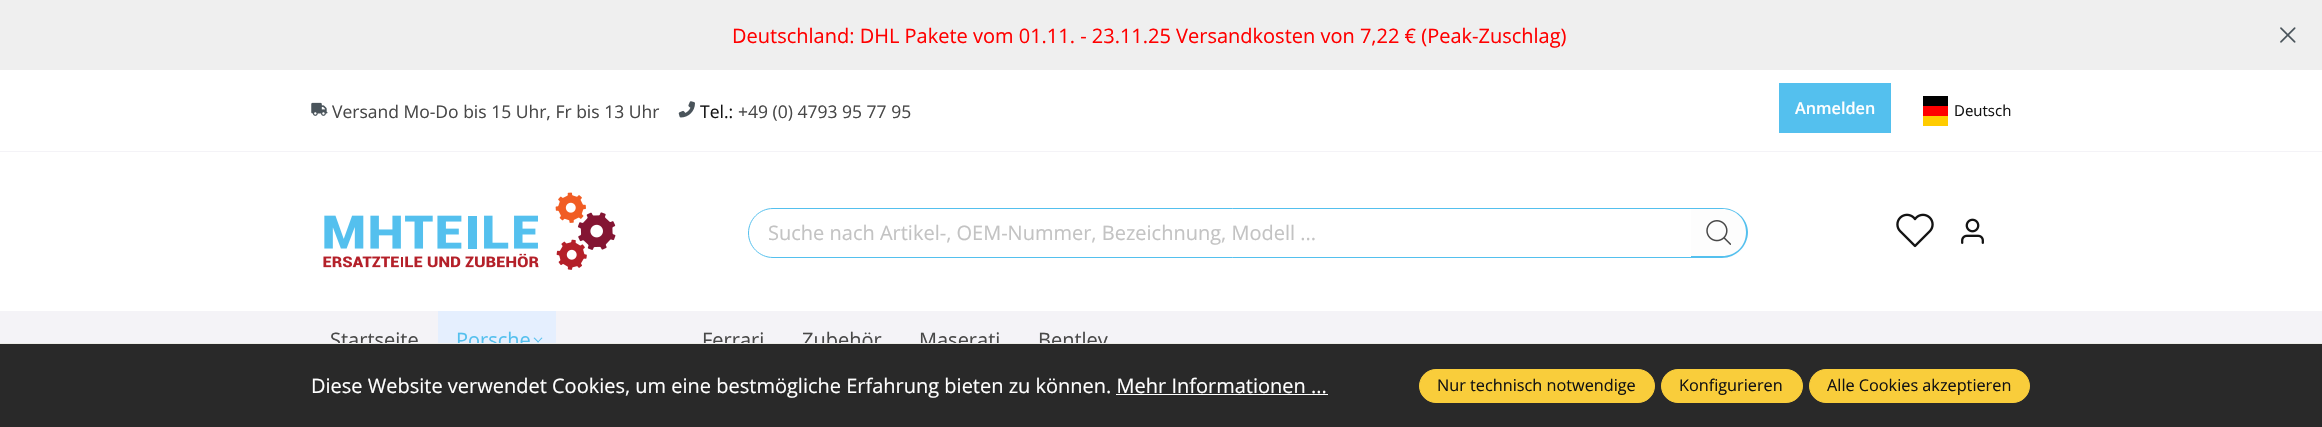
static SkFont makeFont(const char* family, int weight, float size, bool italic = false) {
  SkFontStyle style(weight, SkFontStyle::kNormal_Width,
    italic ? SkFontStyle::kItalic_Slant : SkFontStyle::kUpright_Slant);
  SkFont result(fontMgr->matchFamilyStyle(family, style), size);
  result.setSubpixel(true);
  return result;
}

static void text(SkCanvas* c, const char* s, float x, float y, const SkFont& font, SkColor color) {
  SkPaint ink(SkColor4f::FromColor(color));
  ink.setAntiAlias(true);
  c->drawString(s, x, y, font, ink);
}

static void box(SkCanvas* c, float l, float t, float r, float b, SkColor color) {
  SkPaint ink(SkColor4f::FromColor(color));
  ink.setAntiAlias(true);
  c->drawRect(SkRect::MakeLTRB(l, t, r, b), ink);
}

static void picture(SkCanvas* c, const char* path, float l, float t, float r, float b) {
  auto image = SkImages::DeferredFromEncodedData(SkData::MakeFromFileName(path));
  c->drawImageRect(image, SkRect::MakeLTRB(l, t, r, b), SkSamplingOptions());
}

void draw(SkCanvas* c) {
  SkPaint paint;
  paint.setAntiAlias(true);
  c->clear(0xffefefef);
  SkFont face1 = makeFont("Open Sans", 400, 20);
  text(c, "Deutschland: DHL Pakete vom 01.11. - 23.11.25 Versandkosten von 7,22 € (Peak-Zuschlag)", 732, 43, face1, 0xffff0000);
  picture(c, "img_01.png", 2280, 27, 2296, 43);
  box(c, 0, 70, 2322, 311, 0xffffffff);
  box(c, 0, 151, 2322, 152, 0xfff4f3f7);
  picture(c, "img_02.png", 311, 102, 328, 116);
  SkFont face2 = makeFont("Open Sans", 400, 17.5f);
  text(c, "Versand Mo-Do bis 15 Uhr, Fr bis 13 Uhr", 332, 118, face2, 0xff484848);
  picture(c, "img_03.png", 678, 101, 695, 118);
  text(c, "Tel.:", 700, 118, face2, 0xff131313);
  text(c, "+49 (0) 4793 95 77 95", 738, 118, face2, 0xff484848);
  box(c, 1779, 83, 1891, 133, 0xff54c0ee);
  SkFont face3 = makeFont("Open Sans", 600, 16.25f);
  text(c, "Anmelden", 1795, 114, face3, 0xffffffff);
  box(c, 1923, 96, 1948, 106, 0xff000000);
  box(c, 1923, 106, 1948, 116, 0xffff0000);
  box(c, 1923, 116, 1948, 126, 0xffffcc00);
  SkFont face4 = makeFont("Open Sans", 400, 15);
  text(c, "Deutsch", 1954, 116, face4, 0xff131313);
  picture(c, "img_04.png", 323, 192, 616, 270);
  paint.setStyle(SkPaint::kStroke_Style);
  paint.setStrokeWidth(1);
  paint.setColor(0xff54c0ee);
  c->drawPath(SkPathBuilder().moveTo(773, 208.5f).lineTo(1692.5f, 208.5f).lineTo(1692.5f, 257.5f).lineTo(773, 257.5f).cubicTo(759.5f, 257.5f, 748.5f, 246.5f, 748.5f, 233).cubicTo(748.5f, 219.5f, 759.5f, 208.5f, 773, 208.5f).close().detach(), paint);
  text(c, "Suche nach Artikel-, OEM-Nummer, Bezeichnung, Modell ...", 768, 240, face1, 0xffc3c3c3);
  paint.setStyle(SkPaint::kFill_Style);
  paint.setColor(0xfffdfdfd);
  c->drawPath(SkPathBuilder().moveTo(1691, 208).lineTo(1723, 208).cubicTo(1737, 208, 1748, 219, 1748, 233).cubicTo(1748, 247, 1737, 258, 1723, 258).lineTo(1691, 258).close().detach(), paint);
  paint.setColor(0xff54c0ee);
  c->drawPath(SkPathBuilder(SkPathFillType::kEvenOdd).moveTo(1691, 208).lineTo(1722, 208).cubicTo(1736, 208, 1748, 219, 1748, 232).cubicTo(1748, 246, 1736, 258, 1722, 258).lineTo(1691, 258).close().moveTo(1691, 209).lineTo(1722, 209).cubicTo(1736, 209, 1746, 219, 1746, 232).cubicTo(1746, 246, 1736, 256, 1722, 256).lineTo(1691, 256).close().detach(), paint);
  picture(c, "img_05.png", 1706, 220, 1731, 245);
  picture(c, "img_06.png", 1896, 213, 1934, 248);
  picture(c, "img_07.png", 1961, 218, 1984, 244);
  box(c, 0, 311, 2322, 343, 0xfff4f3f7);
  text(c, "Startseite", 330, 347, face1, 0xff484848);
  box(c, 438, 311, 556, 343, 0xffe5effe);
  text(c, "Porsche", 456, 347, face1, 0xff54c0ee);
  c->drawPath(SkPathBuilder().moveTo(541.5f, 337.5f).lineTo(542.5f, 338).lineTo(538, 342.5f).lineTo(537.5f, 342).close().detach(), paint);
  c->drawPath(SkPathBuilder().moveTo(534.5f, 337.5f).lineTo(539, 342).lineTo(538, 342.5f).lineTo(533.5f, 338).close().detach(), paint);
  text(c, "Ferrari", 702, 347, face1, 0xff484848);
  text(c, "Zubehör", 802, 347, face1, 0xff484848);
  text(c, "Maserati", 919, 347, face1, 0xff484848);
  text(c, "Bentley", 1038, 347, face1, 0xff484848);
  box(c, 0, 344, 2322, 427, 0xff292929);
  box(c, 0, 343, 2322, 344, 0xffecece7);
  text(c, "Diese Website verwendet Cookies, um eine bestmögliche Erfahrung bieten zu können. Mehr Informationen ...", 311, 393, face1, 0xffffffff);
  box(c, 1116, 394, 1328, 395, 0xffffffff);
  paint.setColor(0xfff9cd3b);
  c->drawRoundRect(SkRect::MakeLTRB(1419.5f, 369.5f, 1654.5f, 402.5f), 16.5f, 16.5f, paint);
  paint.setStyle(SkPaint::kStroke_Style);
  c->drawRoundRect(SkRect::MakeLTRB(1419.5f, 369.5f, 1654.5f, 402.5f), 16.5f, 16.5f, paint);
  SkFont face5 = makeFont("Open Sans", 400, 16.25f);
  text(c, "Nur technisch notwendige", 1437, 391, face5, 0xff131313);
  paint.setStyle(SkPaint::kFill_Style);
  c->drawRoundRect(SkRect::MakeLTRB(1661.5f, 369.5f, 1802.5f, 402.5f), 16.5f, 16.5f, paint);
  paint.setStyle(SkPaint::kStroke_Style);
  c->drawRoundRect(SkRect::MakeLTRB(1661.5f, 369.5f, 1802.5f, 402.5f), 16.5f, 16.5f, paint);
  text(c, "Konfigurieren", 1679, 391, face5, 0xff131313);
  paint.setStyle(SkPaint::kFill_Style);
  c->drawRoundRect(SkRect::MakeLTRB(1809.5f, 369.5f, 2029.5f, 402.5f), 16.5f, 16.5f, paint);
  paint.setStyle(SkPaint::kStroke_Style);
  c->drawRoundRect(SkRect::MakeLTRB(1809.5f, 369.5f, 2029.5f, 402.5f), 16.5f, 16.5f, paint);
  text(c, "Alle Cookies akzeptieren", 1827, 391, face5, 0xff131313);
}
